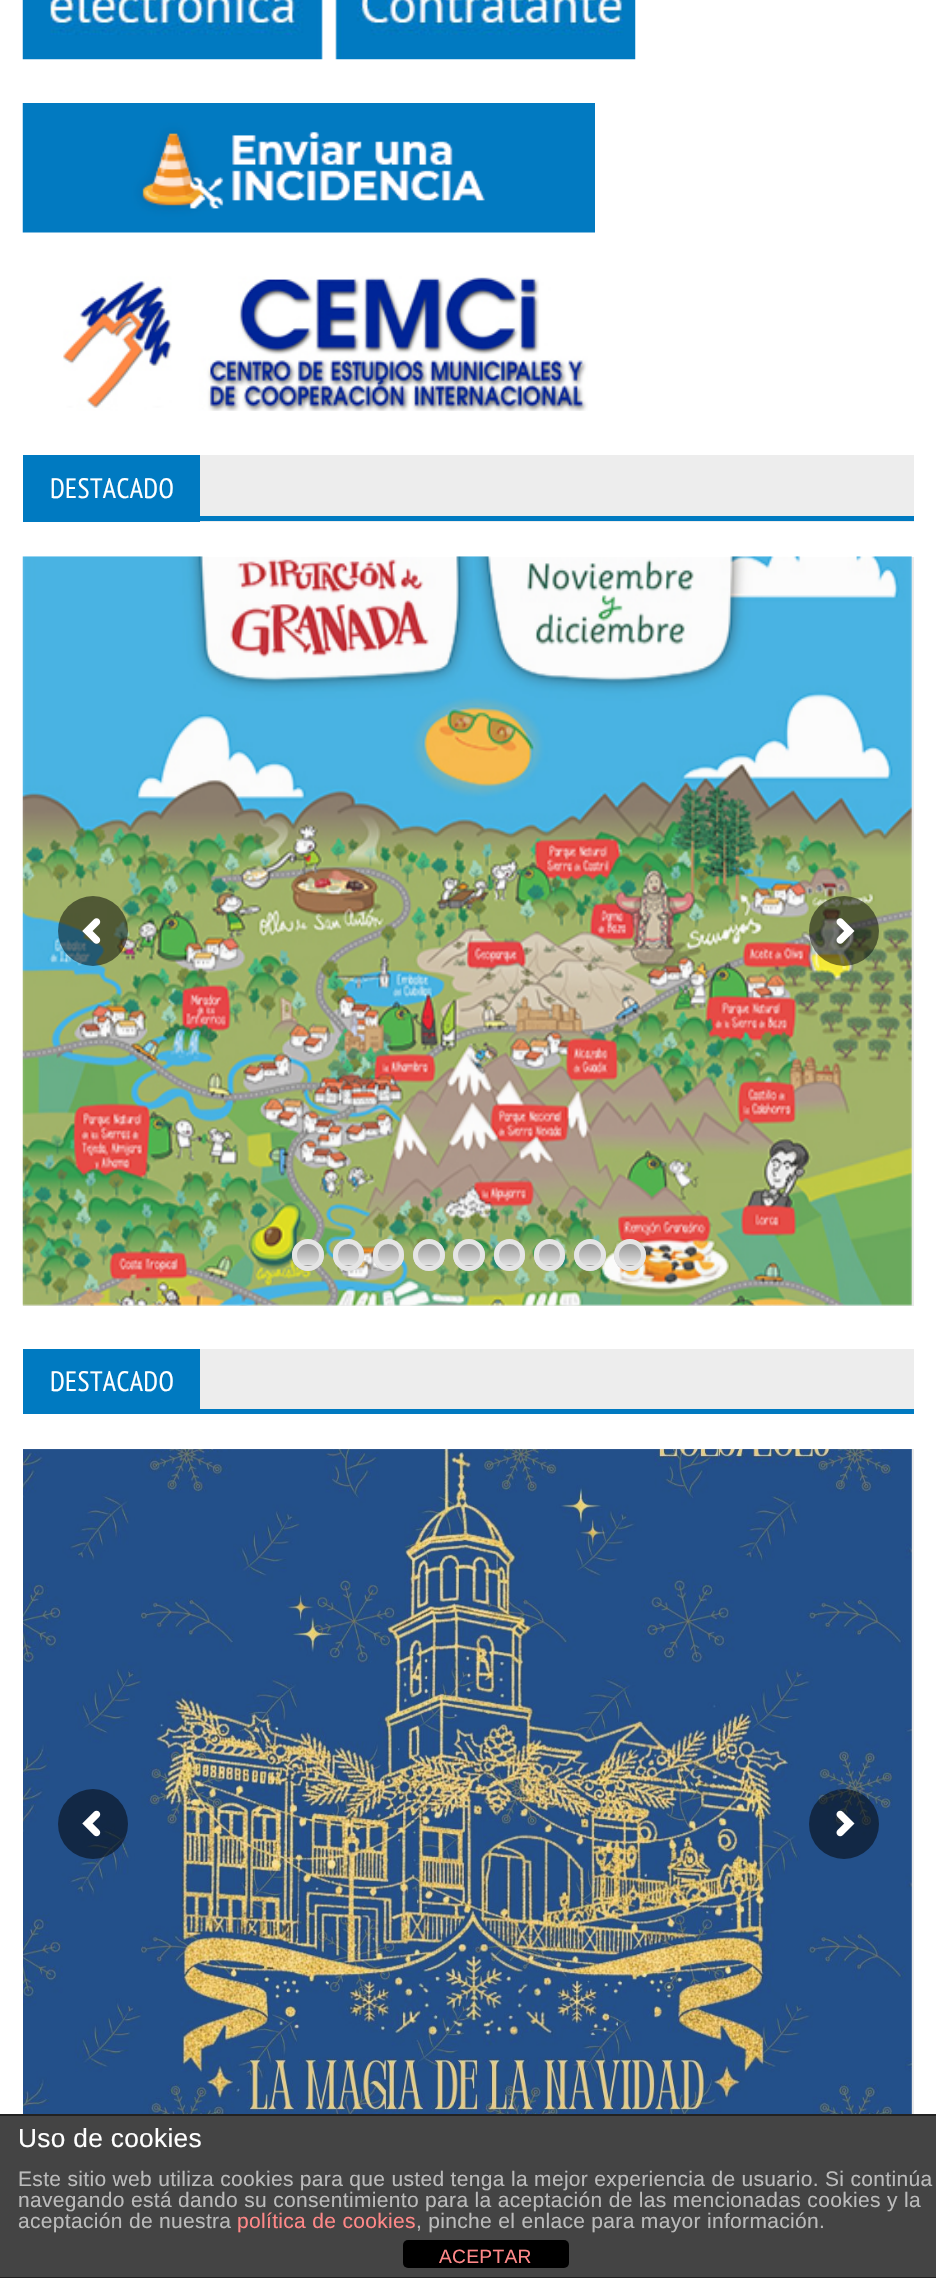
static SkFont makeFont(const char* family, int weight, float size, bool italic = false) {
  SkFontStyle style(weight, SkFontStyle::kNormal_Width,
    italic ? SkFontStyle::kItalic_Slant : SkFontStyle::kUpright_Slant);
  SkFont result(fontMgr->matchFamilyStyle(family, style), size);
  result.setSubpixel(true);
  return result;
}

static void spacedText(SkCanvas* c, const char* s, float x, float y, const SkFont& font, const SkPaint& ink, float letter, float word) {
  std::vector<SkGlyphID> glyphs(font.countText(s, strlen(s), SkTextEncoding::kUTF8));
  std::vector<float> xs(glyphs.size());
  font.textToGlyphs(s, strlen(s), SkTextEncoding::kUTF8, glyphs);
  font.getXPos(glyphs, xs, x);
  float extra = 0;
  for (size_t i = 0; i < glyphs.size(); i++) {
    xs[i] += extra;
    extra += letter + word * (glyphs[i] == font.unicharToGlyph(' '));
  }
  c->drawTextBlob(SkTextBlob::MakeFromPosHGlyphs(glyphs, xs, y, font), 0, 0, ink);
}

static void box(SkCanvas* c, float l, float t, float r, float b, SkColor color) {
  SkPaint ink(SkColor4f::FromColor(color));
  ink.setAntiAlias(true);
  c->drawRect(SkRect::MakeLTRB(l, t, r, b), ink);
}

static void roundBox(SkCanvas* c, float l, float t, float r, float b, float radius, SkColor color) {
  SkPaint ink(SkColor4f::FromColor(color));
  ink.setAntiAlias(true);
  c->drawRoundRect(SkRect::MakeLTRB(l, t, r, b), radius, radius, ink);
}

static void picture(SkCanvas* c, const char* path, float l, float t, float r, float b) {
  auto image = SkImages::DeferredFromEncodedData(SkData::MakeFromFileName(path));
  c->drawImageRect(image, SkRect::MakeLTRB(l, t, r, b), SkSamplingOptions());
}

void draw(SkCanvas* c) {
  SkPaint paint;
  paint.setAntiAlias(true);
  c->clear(0xffffffff);
  picture(c, "img_01.png", 22, 0, 323, 60);
  picture(c, "img_02.png", 335, 0, 636, 60);
  picture(c, "img_03.png", 22, 103, 595, 233);
  picture(c, "img_04.png", 63, 276, 588, 411);
  box(c, 200, 455, 914, 522, 0xffededed);
  box(c, 23, 455, 200, 522, 0xff007ac1);
  SkFont face1 = makeFont("PT Sans Narrow", 400, 28);
  paint.setColor(0xffffffff);
  spacedText(c, "DESTACADO", 50, 498, face1, paint, 0.4f, 0);
  box(c, 200, 516, 914, 521, 0xff007ac1);
  box(c, 23, 557, 914, 1306, 0xffe9e9e9);
  picture(c, "img_05.png", 22, 556, 912, 1306);
  paint.setColor(0x80000000);
  c->drawCircle(93, 931, 35, paint);
  picture(c, "img_06.png", 82, 918, 101, 944);
  c->drawCircle(844, 931, 35, paint);
  picture(c, "img_07.png", 836, 918, 855, 944);
  c->save();
  c->clipPath(SkPathBuilder().moveTo(308, 1239).cubicTo(317, 1239, 324, 1246, 324, 1255).cubicTo(324, 1264, 317, 1271, 308, 1271).cubicTo(299, 1271, 292, 1264, 292, 1255).cubicTo(292, 1246, 299, 1239, 308, 1239).close().detach(), true);
  {
    const SkColor colors[] = {0xff999999, 0xffe1e1e1};
    const float stops[] = {0, 1};
    const SkPoint ends[] = {{308, 1244}, {308, 1265}};
    paint.setShader(SkGradientShader::MakeLinear(ends, colors, stops, 2, SkTileMode::kClamp));
    paint.setAlpha(255);
  }
  c->drawRect(SkRect::MakeLTRB(292, 1244, 324, 1265), paint);
  {
    const SkColor colors[] = {0xff999999, 0xffe1e1e1};
    const float stops[] = {0, 1};
    const SkPoint ends[] = {{308, 1265}, {308, 1286}};
    paint.setShader(SkGradientShader::MakeLinear(ends, colors, stops, 2, SkTileMode::kClamp));
    paint.setAlpha(255);
  }
  c->drawRect(SkRect::MakeLTRB(292, 1265, 324, 1271), paint);
  c->restore();
  paint.setStyle(SkPaint::kStroke_Style);
  paint.setStrokeWidth(5);
  paint.setShader(nullptr);
  paint.setColor(0xffe5e5e5);
  c->drawCircle(308, 1255, 13.5f, paint);
  c->save();
  c->clipPath(SkPathBuilder().moveTo(348.5f, 1239).cubicTo(357, 1239, 364, 1246, 364, 1254.5f).lineTo(364, 1255.5f).cubicTo(364, 1264, 357, 1271, 348.5f, 1271).cubicTo(340, 1271, 333, 1264, 333, 1255.5f).lineTo(333, 1254.5f).cubicTo(333, 1246, 340, 1239, 348.5f, 1239).close().detach(), true);
  paint.setStyle(SkPaint::kFill_Style);
  {
    const SkColor colors[] = {0xff999999, 0xffe1e1e1};
    const float stops[] = {0, 1};
    const SkPoint ends[] = {{348, 1244}, {348, 1265}};
    paint.setShader(SkGradientShader::MakeLinear(ends, colors, stops, 2, SkTileMode::kClamp));
    paint.setAlpha(255);
  }
  c->drawRect(SkRect::MakeLTRB(333, 1244, 364, 1265), paint);
  {
    const SkColor colors[] = {0xff999999, 0xffe1e1e1};
    const float stops[] = {0, 1};
    const SkPoint ends[] = {{348, 1265}, {348, 1286}};
    paint.setShader(SkGradientShader::MakeLinear(ends, colors, stops, 2, SkTileMode::kClamp));
    paint.setAlpha(255);
  }
  c->drawRect(SkRect::MakeLTRB(333, 1265, 364, 1271), paint);
  c->restore();
  paint.setStyle(SkPaint::kStroke_Style);
  paint.setShader(nullptr);
  paint.setColor(0xffe5e5e5);
  c->drawRoundRect(SkRect::MakeLTRB(335.5f, 1241.5f, 361.5f, 1268.5f), 13, 13, paint);
  c->save();
  c->clipPath(SkPathBuilder().moveTo(388.5f, 1239).cubicTo(397, 1239, 404, 1246, 404, 1254.5f).lineTo(404, 1255.5f).cubicTo(404, 1264, 397, 1271, 388.5f, 1271).cubicTo(380, 1271, 373, 1264, 373, 1255.5f).lineTo(373, 1254.5f).cubicTo(373, 1246, 380, 1239, 388.5f, 1239).close().detach(), true);
  paint.setStyle(SkPaint::kFill_Style);
  {
    const SkColor colors[] = {0xff999999, 0xffe1e1e1};
    const float stops[] = {0, 1};
    const SkPoint ends[] = {{389, 1244}, {389, 1265}};
    paint.setShader(SkGradientShader::MakeLinear(ends, colors, stops, 2, SkTileMode::kClamp));
    paint.setAlpha(255);
  }
  c->drawRect(SkRect::MakeLTRB(373, 1244, 404, 1265), paint);
  {
    const SkColor colors[] = {0xff999999, 0xffe1e1e1};
    const float stops[] = {0, 1};
    const SkPoint ends[] = {{389, 1265}, {389, 1286}};
    paint.setShader(SkGradientShader::MakeLinear(ends, colors, stops, 2, SkTileMode::kClamp));
    paint.setAlpha(255);
  }
  c->drawRect(SkRect::MakeLTRB(373, 1265, 404, 1271), paint);
  c->restore();
  paint.setStyle(SkPaint::kStroke_Style);
  paint.setShader(nullptr);
  paint.setColor(0xffe5e5e5);
  c->drawRoundRect(SkRect::MakeLTRB(375.5f, 1241.5f, 401.5f, 1268.5f), 13, 13, paint);
  c->save();
  c->clipPath(SkPathBuilder().moveTo(429, 1239).cubicTo(438, 1239, 445, 1246, 445, 1255).cubicTo(445, 1264, 438, 1271, 429, 1271).cubicTo(420, 1271, 413, 1264, 413, 1255).cubicTo(413, 1246, 420, 1239, 429, 1239).close().detach(), true);
  paint.setStyle(SkPaint::kFill_Style);
  {
    const SkColor colors[] = {0xff999999, 0xffe1e1e1};
    const float stops[] = {0, 1};
    const SkPoint ends[] = {{429, 1244}, {429, 1265}};
    paint.setShader(SkGradientShader::MakeLinear(ends, colors, stops, 2, SkTileMode::kClamp));
    paint.setAlpha(255);
  }
  c->drawRect(SkRect::MakeLTRB(413, 1244, 445, 1265), paint);
  {
    const SkColor colors[] = {0xff999999, 0xffe1e1e1};
    const float stops[] = {0, 1};
    const SkPoint ends[] = {{429, 1265}, {429, 1286}};
    paint.setShader(SkGradientShader::MakeLinear(ends, colors, stops, 2, SkTileMode::kClamp));
    paint.setAlpha(255);
  }
  c->drawRect(SkRect::MakeLTRB(413, 1265, 445, 1271), paint);
  c->restore();
  paint.setStyle(SkPaint::kStroke_Style);
  paint.setShader(nullptr);
  paint.setColor(0xffe5e5e5);
  c->drawCircle(429, 1255, 13.5f, paint);
  c->save();
  c->clipPath(SkPathBuilder().moveTo(469, 1239).cubicTo(478, 1239, 485, 1246, 485, 1255).cubicTo(485, 1264, 478, 1271, 469, 1271).cubicTo(460, 1271, 453, 1264, 453, 1255).cubicTo(453, 1246, 460, 1239, 469, 1239).close().detach(), true);
  paint.setStyle(SkPaint::kFill_Style);
  {
    const SkColor colors[] = {0xff999999, 0xffe1e1e1};
    const float stops[] = {0, 1};
    const SkPoint ends[] = {{469, 1244}, {469, 1265}};
    paint.setShader(SkGradientShader::MakeLinear(ends, colors, stops, 2, SkTileMode::kClamp));
    paint.setAlpha(255);
  }
  c->drawRect(SkRect::MakeLTRB(453, 1244, 485, 1265), paint);
  {
    const SkColor colors[] = {0xff999999, 0xffe1e1e1};
    const float stops[] = {0, 1};
    const SkPoint ends[] = {{469, 1265}, {469, 1286}};
    paint.setShader(SkGradientShader::MakeLinear(ends, colors, stops, 2, SkTileMode::kClamp));
    paint.setAlpha(255);
  }
  c->drawRect(SkRect::MakeLTRB(453, 1265, 485, 1271), paint);
  c->restore();
  paint.setStyle(SkPaint::kStroke_Style);
  paint.setShader(nullptr);
  paint.setColor(0xffe5e5e5);
  c->drawCircle(469, 1255, 13.5f, paint);
  c->save();
  c->clipPath(SkPathBuilder().moveTo(509.5f, 1239).cubicTo(518, 1239, 525, 1246, 525, 1254.5f).lineTo(525, 1255.5f).cubicTo(525, 1264, 518, 1271, 509.5f, 1271).cubicTo(501, 1271, 494, 1264, 494, 1255.5f).lineTo(494, 1254.5f).cubicTo(494, 1246, 501, 1239, 509.5f, 1239).close().detach(), true);
  paint.setStyle(SkPaint::kFill_Style);
  {
    const SkColor colors[] = {0xff999999, 0xffe1e1e1};
    const float stops[] = {0, 1};
    const SkPoint ends[] = {{509, 1244}, {509, 1265}};
    paint.setShader(SkGradientShader::MakeLinear(ends, colors, stops, 2, SkTileMode::kClamp));
    paint.setAlpha(255);
  }
  c->drawRect(SkRect::MakeLTRB(494, 1244, 525, 1265), paint);
  {
    const SkColor colors[] = {0xff999999, 0xffe1e1e1};
    const float stops[] = {0, 1};
    const SkPoint ends[] = {{509, 1265}, {509, 1286}};
    paint.setShader(SkGradientShader::MakeLinear(ends, colors, stops, 2, SkTileMode::kClamp));
    paint.setAlpha(255);
  }
  c->drawRect(SkRect::MakeLTRB(494, 1265, 525, 1271), paint);
  c->restore();
  paint.setStyle(SkPaint::kStroke_Style);
  paint.setShader(nullptr);
  paint.setColor(0xffe5e5e5);
  c->drawRoundRect(SkRect::MakeLTRB(496.5f, 1241.5f, 522.5f, 1268.5f), 13, 13, paint);
  c->save();
  c->clipPath(SkPathBuilder().moveTo(549.5f, 1239).cubicTo(558, 1239, 565, 1246, 565, 1254.5f).lineTo(565, 1255.5f).cubicTo(565, 1264, 558, 1271, 549.5f, 1271).cubicTo(541, 1271, 534, 1264, 534, 1255.5f).lineTo(534, 1254.5f).cubicTo(534, 1246, 541, 1239, 549.5f, 1239).close().detach(), true);
  paint.setStyle(SkPaint::kFill_Style);
  {
    const SkColor colors[] = {0xff999999, 0xffe1e1e1};
    const float stops[] = {0, 1};
    const SkPoint ends[] = {{550, 1244}, {550, 1265}};
    paint.setShader(SkGradientShader::MakeLinear(ends, colors, stops, 2, SkTileMode::kClamp));
    paint.setAlpha(255);
  }
  c->drawRect(SkRect::MakeLTRB(534, 1244, 565, 1265), paint);
  {
    const SkColor colors[] = {0xff999999, 0xffe1e1e1};
    const float stops[] = {0, 1};
    const SkPoint ends[] = {{550, 1265}, {550, 1286}};
    paint.setShader(SkGradientShader::MakeLinear(ends, colors, stops, 2, SkTileMode::kClamp));
    paint.setAlpha(255);
  }
  c->drawRect(SkRect::MakeLTRB(534, 1265, 565, 1271), paint);
  c->restore();
  paint.setStyle(SkPaint::kStroke_Style);
  paint.setShader(nullptr);
  paint.setColor(0xffe5e5e5);
  c->drawRoundRect(SkRect::MakeLTRB(536.5f, 1241.5f, 562.5f, 1268.5f), 13, 13, paint);
  c->save();
  c->clipPath(SkPathBuilder().moveTo(590, 1239).cubicTo(599, 1239, 606, 1246, 606, 1255).cubicTo(606, 1264, 599, 1271, 590, 1271).cubicTo(581, 1271, 574, 1264, 574, 1255).cubicTo(574, 1246, 581, 1239, 590, 1239).close().detach(), true);
  paint.setStyle(SkPaint::kFill_Style);
  {
    const SkColor colors[] = {0xff999999, 0xffe1e1e1};
    const float stops[] = {0, 1};
    const SkPoint ends[] = {{590, 1244}, {590, 1265}};
    paint.setShader(SkGradientShader::MakeLinear(ends, colors, stops, 2, SkTileMode::kClamp));
    paint.setAlpha(255);
  }
  c->drawRect(SkRect::MakeLTRB(574, 1244, 606, 1265), paint);
  {
    const SkColor colors[] = {0xff999999, 0xffe1e1e1};
    const float stops[] = {0, 1};
    const SkPoint ends[] = {{590, 1265}, {590, 1286}};
    paint.setShader(SkGradientShader::MakeLinear(ends, colors, stops, 2, SkTileMode::kClamp));
    paint.setAlpha(255);
  }
  c->drawRect(SkRect::MakeLTRB(574, 1265, 606, 1271), paint);
  c->restore();
  paint.setStyle(SkPaint::kStroke_Style);
  paint.setShader(nullptr);
  paint.setColor(0xffe5e5e5);
  c->drawCircle(590, 1255, 13.5f, paint);
  c->save();
  c->clipPath(SkPathBuilder().moveTo(630, 1239).cubicTo(639, 1239, 646, 1246, 646, 1255).cubicTo(646, 1264, 639, 1271, 630, 1271).cubicTo(621, 1271, 614, 1264, 614, 1255).cubicTo(614, 1246, 621, 1239, 630, 1239).close().detach(), true);
  paint.setStyle(SkPaint::kFill_Style);
  {
    const SkColor colors[] = {0xff999999, 0xffe1e1e1};
    const float stops[] = {0, 1};
    const SkPoint ends[] = {{630, 1244}, {630, 1265}};
    paint.setShader(SkGradientShader::MakeLinear(ends, colors, stops, 2, SkTileMode::kClamp));
    paint.setAlpha(255);
  }
  c->drawRect(SkRect::MakeLTRB(614, 1244, 646, 1265), paint);
  {
    const SkColor colors[] = {0xff999999, 0xffe1e1e1};
    const float stops[] = {0, 1};
    const SkPoint ends[] = {{630, 1265}, {630, 1286}};
    paint.setShader(SkGradientShader::MakeLinear(ends, colors, stops, 2, SkTileMode::kClamp));
    paint.setAlpha(255);
  }
  c->drawRect(SkRect::MakeLTRB(614, 1265, 646, 1271), paint);
  c->restore();
  paint.setStyle(SkPaint::kStroke_Style);
  paint.setShader(nullptr);
  paint.setColor(0xffe5e5e5);
  c->drawCircle(630, 1255, 13.5f, paint);
  box(c, 200, 1349, 914, 1409, 0xffededed);
  box(c, 23, 1349, 200, 1409, 0xff007ac1);
  paint.setStyle(SkPaint::kFill_Style);
  paint.setColor(0xffffffff);
  spacedText(c, "DESTACADO", 50, 1391, face1, paint, 0.4f, 0);
  box(c, 23, 1409, 914, 1414, 0xff007ac1);
  box(c, 23, 1449, 914, 2114, 0xffe9e9e9);
  picture(c, "img_08.png", 23, 1449, 912, 2114);
  paint.setColor(0x80000000);
  c->drawCircle(93, 1824, 35, paint);
  picture(c, "img_09.png", 82, 1810, 101, 1837);
  c->drawCircle(844, 1824, 35, paint);
  picture(c, "img_10.png", 836, 1810, 855, 1837);
  box(c, 0, 2116, 936, 2277, 0xff444444);
  box(c, 0, 2114, 936, 2116, 0xff222222);
  box(c, 0, 2277, 936, 2278, 0xff222222);
  SkFont face2 = makeFont("Liberation Sans", 400, 26.25f);
  paint.setColor(0xffffffff);
  spacedText(c, "Uso de cookies", 18, 2147, face2, paint, 0.32f, 0);
  SkFont face3 = makeFont("Liberation Sans", 400, 21);
  paint.setColor(0xffbbbbbb);
  spacedText(c, "Este sitio web utiliza cookies para que usted tenga la mejor experiencia de usuario. Si continúa", 18, 2186, face3, paint, 0.32f, 0);
  spacedText(c, "navegando está dando su consentimiento para la aceptación de las mencionadas cookies y la", 18, 2207, face3, paint, 0.32f, 0);
  spacedText(c, "aceptación de nuestra", 18, 2228, face3, paint, 0.32f, 0);
  paint.setColor(0xffff8888);
  spacedText(c, "política de cookies", 237, 2228, face3, paint, 0.32f, 0);
  paint.setColor(0xffbbbbbb);
  spacedText(c, ", pinche el enlace para mayor información.", 416, 2228, face3, paint, 0.32f, 0);
  roundBox(c, 403, 2240, 569, 2268, 5, 0xff000000);
  SkFont face4 = makeFont("Liberation Sans", 400, 19.25f);
  paint.setColor(0xffff8888);
  spacedText(c, "ACEPTAR", 439, 2263, face4, paint, 0.25f, 0);
}
